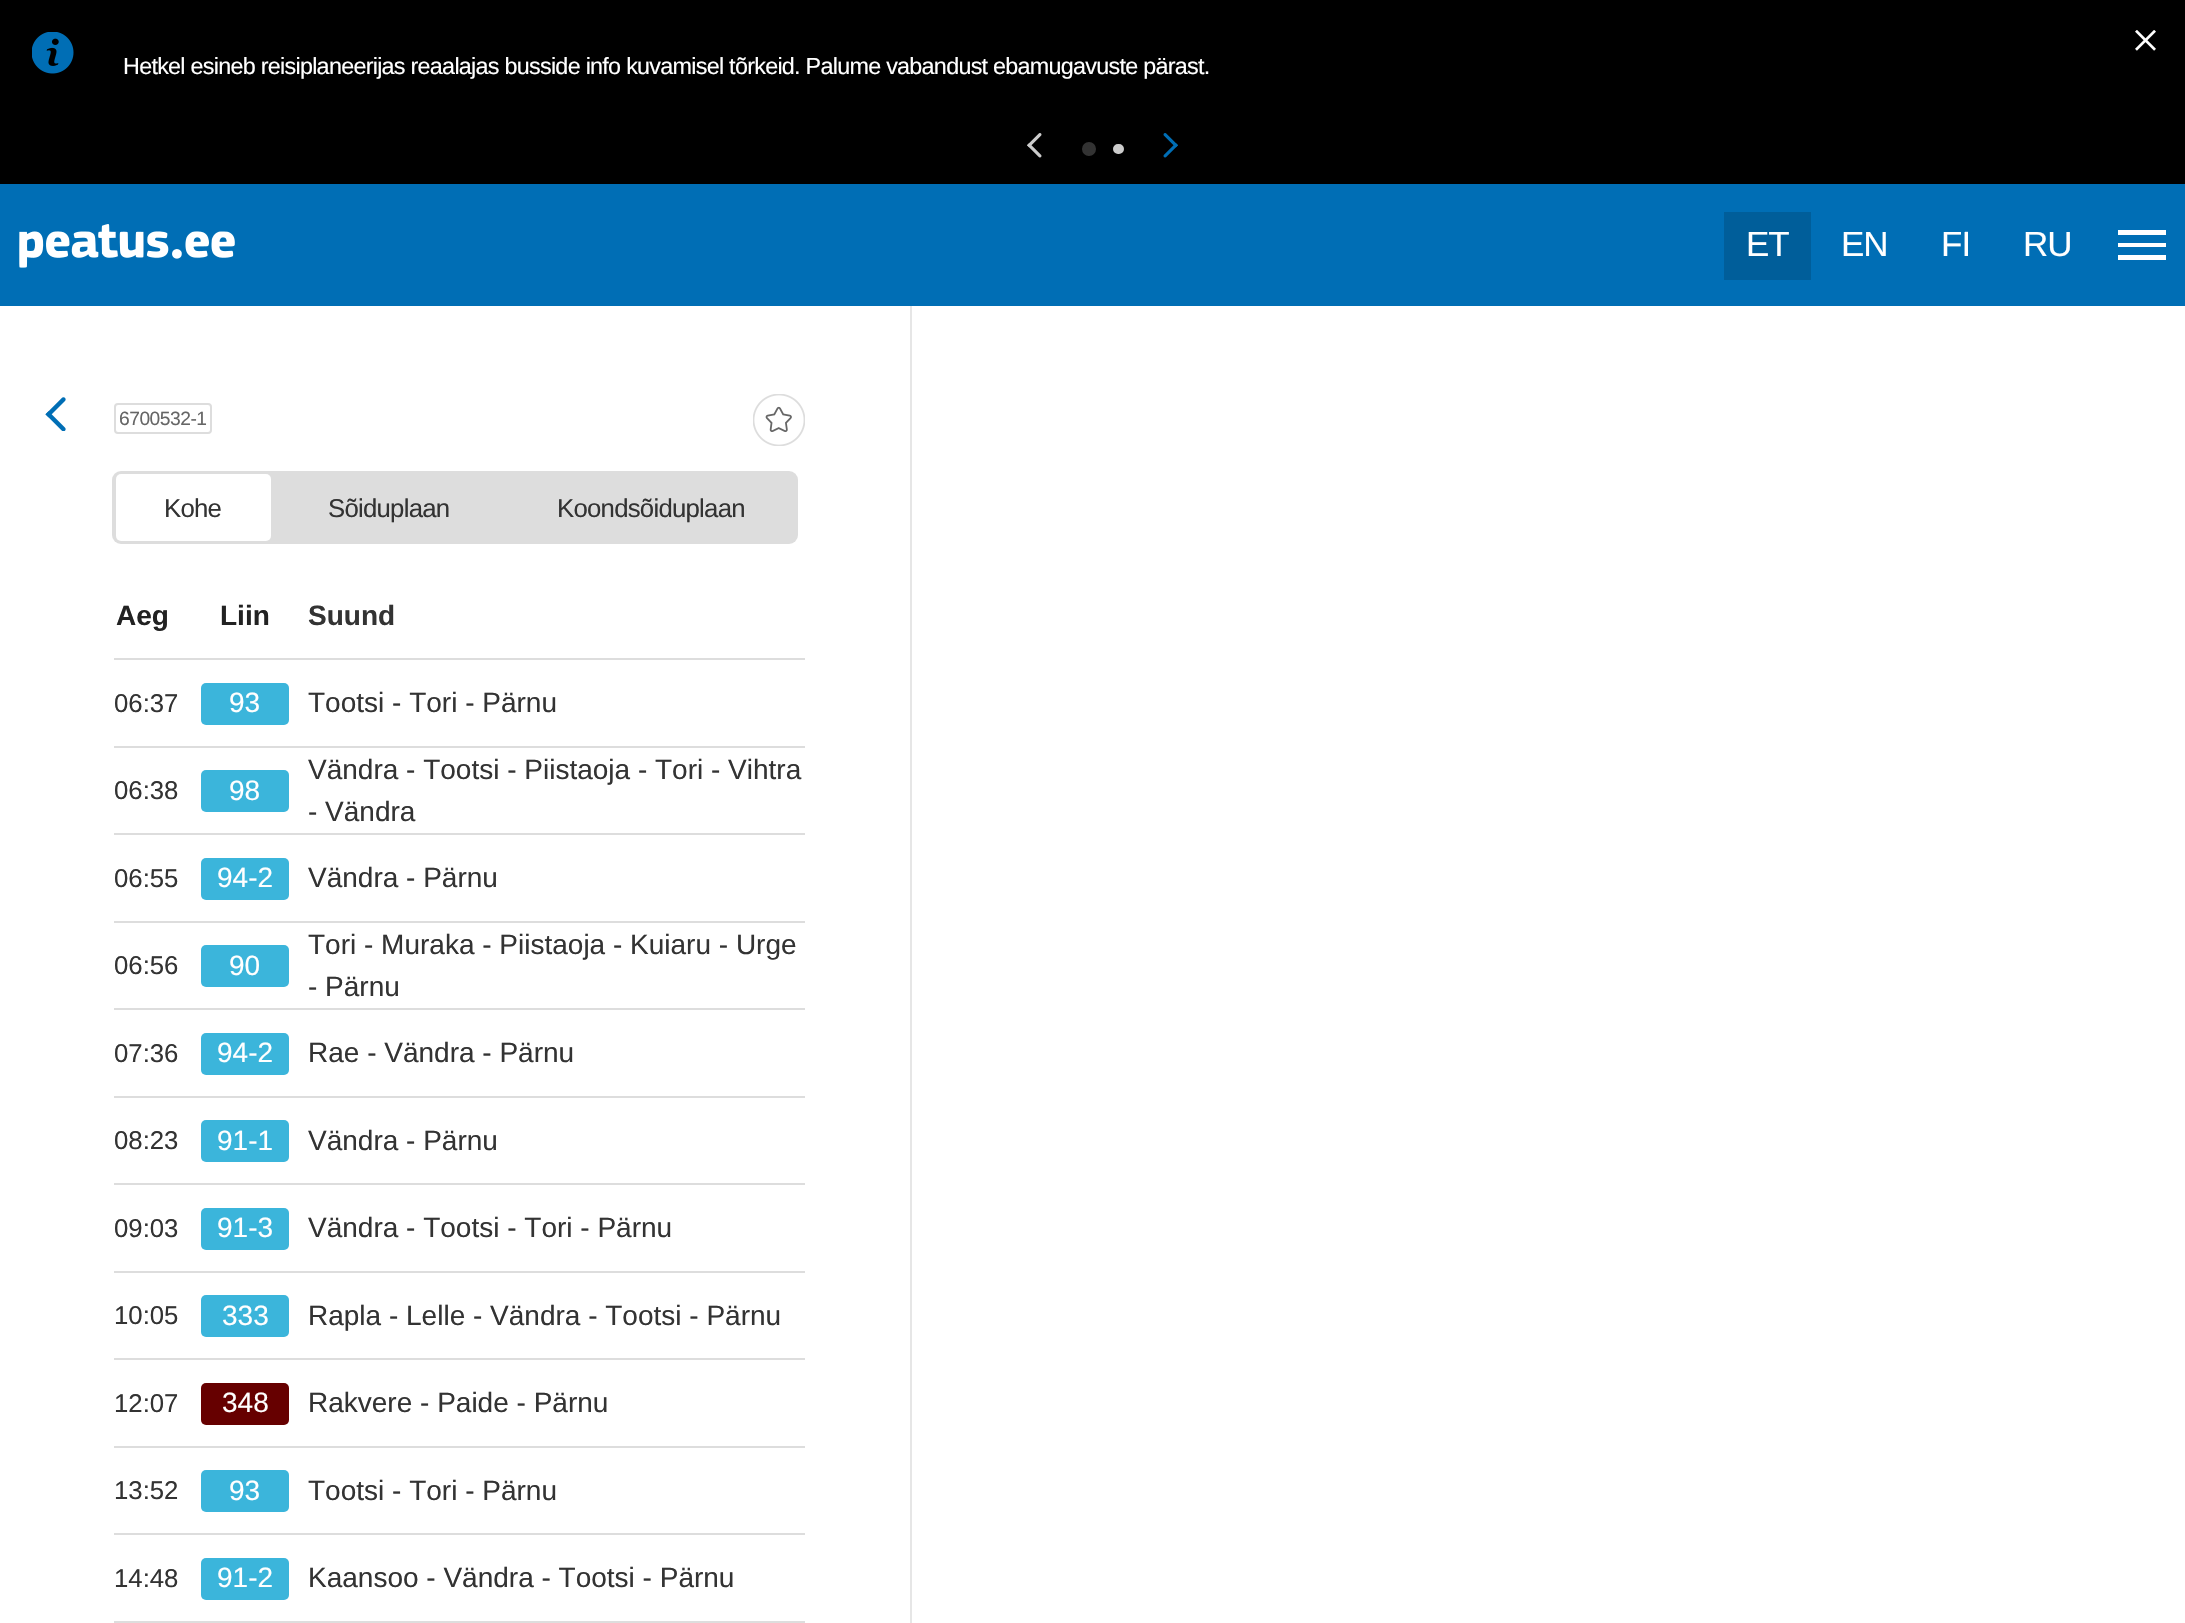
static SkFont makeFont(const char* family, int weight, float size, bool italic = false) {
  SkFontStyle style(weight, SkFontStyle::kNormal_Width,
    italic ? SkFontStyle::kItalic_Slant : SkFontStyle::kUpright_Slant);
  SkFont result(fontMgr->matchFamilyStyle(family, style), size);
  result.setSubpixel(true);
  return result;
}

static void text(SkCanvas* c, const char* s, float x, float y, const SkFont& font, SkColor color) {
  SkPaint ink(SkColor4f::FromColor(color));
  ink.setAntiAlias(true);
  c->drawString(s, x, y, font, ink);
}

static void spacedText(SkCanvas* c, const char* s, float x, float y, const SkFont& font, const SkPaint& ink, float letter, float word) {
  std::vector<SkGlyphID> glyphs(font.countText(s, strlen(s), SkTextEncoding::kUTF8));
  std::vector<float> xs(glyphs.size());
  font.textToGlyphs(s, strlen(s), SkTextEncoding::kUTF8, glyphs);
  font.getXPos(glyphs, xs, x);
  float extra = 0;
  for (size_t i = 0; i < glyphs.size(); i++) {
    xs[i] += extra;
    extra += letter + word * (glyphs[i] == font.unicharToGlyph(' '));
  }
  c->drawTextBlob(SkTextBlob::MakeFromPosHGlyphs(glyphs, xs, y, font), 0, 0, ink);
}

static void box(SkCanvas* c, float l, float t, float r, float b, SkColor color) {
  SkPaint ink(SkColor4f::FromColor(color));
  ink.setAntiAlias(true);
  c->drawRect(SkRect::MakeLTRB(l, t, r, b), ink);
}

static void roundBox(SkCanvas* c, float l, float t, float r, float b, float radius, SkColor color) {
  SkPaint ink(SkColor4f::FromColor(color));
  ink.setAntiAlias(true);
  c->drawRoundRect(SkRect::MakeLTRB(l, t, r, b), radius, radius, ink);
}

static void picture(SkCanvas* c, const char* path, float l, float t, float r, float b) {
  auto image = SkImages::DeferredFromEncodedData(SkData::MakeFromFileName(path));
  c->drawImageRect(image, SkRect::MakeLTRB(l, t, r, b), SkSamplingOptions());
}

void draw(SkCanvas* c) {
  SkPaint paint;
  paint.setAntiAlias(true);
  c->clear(0xffffffff);
  box(c, 0, 0, 2185, 184, 0xff000000);
  picture(c, "img_01.png", 32, 32, 74, 74);
  SkFont face1 = makeFont("Liberation Sans", 400, 23.35f);
  paint.setColor(0xffffffff);
  spacedText(c, "Hetkel esineb reisiplaneerijas reaalajas busside info kuvamisel tõrkeid. Palume vabandust ebamugavuste pärast.", 123, 74, face1, paint, -0.73f, 0);
  picture(c, "img_02.png", 1027, 133, 1042, 158);
  paint.setColor(0xff333333);
  c->drawCircle(1089, 149, 5, paint);
  paint.setStyle(SkPaint::kStroke_Style);
  paint.setStrokeWidth(4);
  c->drawCircle(1089, 149, 5, paint);
  paint.setStyle(SkPaint::kFill_Style);
  paint.setColor(0xffcccccc);
  c->drawRoundRect(SkRect::MakeLTRB(1115, 146, 1122, 152), 3, 3, paint);
  paint.setStyle(SkPaint::kStroke_Style);
  c->drawRoundRect(SkRect::MakeLTRB(1115, 146, 1122, 152), 3, 3, paint);
  picture(c, "img_03.png", 1163, 133, 1178, 158);
  picture(c, "img_04.png", 2135, 30, 2156, 51);
  box(c, 0, 184, 2185, 306, 0xff006eb5);
  picture(c, "img_05.png", 19, 224, 235, 268);
  box(c, 1724, 212, 1811, 280, 0xff005e9a);
  SkFont face2 = makeFont("Liberation Sans", 400, 35);
  paint.setStyle(SkPaint::kFill_Style);
  paint.setColor(0xffffffff);
  spacedText(c, "ET", 1746, 256, face2, paint, -1, 0);
  spacedText(c, "EN", 1841, 256, face2, paint, -1, 0);
  spacedText(c, "FI", 1941, 256, face2, paint, -1, 0);
  spacedText(c, "RU", 2023, 256, face2, paint, -1, 0);
  box(c, 2118, 230, 2166, 235, 0xffffffff);
  box(c, 2118, 243, 2166, 247, 0xffffffff);
  box(c, 2118, 255, 2166, 260, 0xffffffff);
  picture(c, "img_06.png", 45, 397, 66, 431);
  paint.setStyle(SkPaint::kStroke_Style);
  paint.setStrokeWidth(2);
  paint.setColor(0xffdddddd);
  c->drawRoundRect(SkRect::MakeLTRB(115, 404, 211, 433), 3, 3, paint);
  SkFont face3 = makeFont("Liberation Sans", 400, 19.25f);
  paint.setStyle(SkPaint::kFill_Style);
  paint.setColor(0xff666666);
  spacedText(c, "6700532-1", 119, 425, face3, paint, -0.5f, 0);
  picture(c, "img_07.png", 753, 394, 805, 446);
  roundBox(c, 112, 471, 798, 544, 9, 0xffdddddd);
  roundBox(c, 116, 474, 271, 541, 5, 0xffffffff);
  SkFont face4 = makeFont("Liberation Sans", 400, 25.75f);
  paint.setColor(0xff333333);
  spacedText(c, "Kohe", 164, 517, face4, paint, -0.75f, 0);
  spacedText(c, "Sõiduplaan", 328, 517, face4, paint, -0.75f, 0);
  spacedText(c, "Koondsõiduplaan", 557, 517, face4, paint, -0.75f, 0);
  box(c, 114, 658, 805, 660, 0xffdddddd);
  SkFont face5 = makeFont("Liberation Sans", 700, 28);
  text(c, "Aeg", 116, 625, face5, 0xff222222);
  text(c, "Liin", 220, 625, face5, 0xff222222);
  text(c, "Suund", 308, 625, face5, 0xff333333);
  box(c, 114, 746, 805, 748, 0xffdddddd);
  text(c, "06:37", 114, 712, face4, 0xff333333);
  roundBox(c, 201, 683, 289, 725, 5, 0xff3bb5db);
  SkFont face6 = makeFont("Liberation Sans", 400, 28);
  text(c, "93", 229, 712, face6, 0xffffffff);
  text(c, "Tootsi - Tori - Pärnu", 308, 712, face6, 0xff333333);
  box(c, 114, 833, 805, 835, 0xffdddddd);
  text(c, "06:38", 114, 799, face4, 0xff333333);
  roundBox(c, 201, 770, 289, 812, 5, 0xff3bb5db);
  text(c, "98", 229, 800, face6, 0xffffffff);
  text(c, "Vändra - Tootsi - Piistaoja - Tori - Vihtra", 308, 779, face6, 0xff333333);
  text(c, "- Vändra", 308, 821, face6, 0xff333333);
  box(c, 114, 921, 805, 923, 0xffdddddd);
  text(c, "06:55", 114, 887, face4, 0xff333333);
  roundBox(c, 201, 858, 289, 900, 5, 0xff3bb5db);
  text(c, "94-2", 217, 887, face6, 0xffffffff);
  text(c, "Vändra - Pärnu", 308, 887, face6, 0xff333333);
  box(c, 114, 1008, 805, 1010, 0xffdddddd);
  text(c, "06:56", 114, 974, face4, 0xff333333);
  roundBox(c, 201, 945, 289, 987, 5, 0xff3bb5db);
  text(c, "90", 229, 975, face6, 0xffffffff);
  text(c, "Tori - Muraka - Piistaoja - Kuiaru - Urge", 308, 954, face6, 0xff333333);
  text(c, "- Pärnu", 308, 996, face6, 0xff333333);
  box(c, 114, 1096, 805, 1098, 0xffdddddd);
  text(c, "07:36", 114, 1062, face4, 0xff333333);
  roundBox(c, 201, 1033, 289, 1075, 5, 0xff3bb5db);
  text(c, "94-2", 217, 1062, face6, 0xffffffff);
  text(c, "Rae - Vändra - Pärnu", 308, 1062, face6, 0xff333333);
  box(c, 114, 1183, 805, 1185, 0xffdddddd);
  text(c, "08:23", 114, 1149, face4, 0xff333333);
  roundBox(c, 201, 1120, 289, 1162, 5, 0xff3bb5db);
  text(c, "91-1", 217, 1150, face6, 0xffffffff);
  text(c, "Vändra - Pärnu", 308, 1150, face6, 0xff333333);
  box(c, 114, 1271, 805, 1273, 0xffdddddd);
  text(c, "09:03", 114, 1237, face4, 0xff333333);
  roundBox(c, 201, 1208, 289, 1250, 5, 0xff3bb5db);
  text(c, "91-3", 217, 1237, face6, 0xffffffff);
  text(c, "Vändra - Tootsi - Tori - Pärnu", 308, 1237, face6, 0xff333333);
  box(c, 114, 1358, 805, 1360, 0xffdddddd);
  text(c, "10:05", 114, 1324, face4, 0xff333333);
  roundBox(c, 201, 1295, 289, 1337, 5, 0xff3bb5db);
  text(c, "333", 222, 1325, face6, 0xffffffff);
  text(c, "Rapla - Lelle - Vändra - Tootsi - Pärnu", 308, 1325, face6, 0xff333333);
  box(c, 114, 1446, 805, 1448, 0xffdddddd);
  text(c, "12:07", 114, 1412, face4, 0xff333333);
  roundBox(c, 201, 1383, 289, 1425, 5, 0xff660000);
  text(c, "348", 222, 1412, face6, 0xffffffff);
  text(c, "Rakvere - Paide - Pärnu", 308, 1412, face6, 0xff333333);
  box(c, 114, 1533, 805, 1535, 0xffdddddd);
  text(c, "13:52", 114, 1499, face4, 0xff333333);
  roundBox(c, 201, 1470, 289, 1512, 5, 0xff3bb5db);
  text(c, "93", 229, 1500, face6, 0xffffffff);
  text(c, "Tootsi - Tori - Pärnu", 308, 1500, face6, 0xff333333);
  box(c, 114, 1621, 805, 1623, 0xffdddddd);
  text(c, "14:48", 114, 1587, face4, 0xff333333);
  roundBox(c, 201, 1558, 289, 1600, 5, 0xff3bb5db);
  text(c, "91-2", 217, 1587, face6, 0xffffffff);
  text(c, "Kaansoo - Vändra - Tootsi - Pärnu", 308, 1587, face6, 0xff333333);
  box(c, 910, 306, 912, 1623, 0xffe6e6e6);
}
